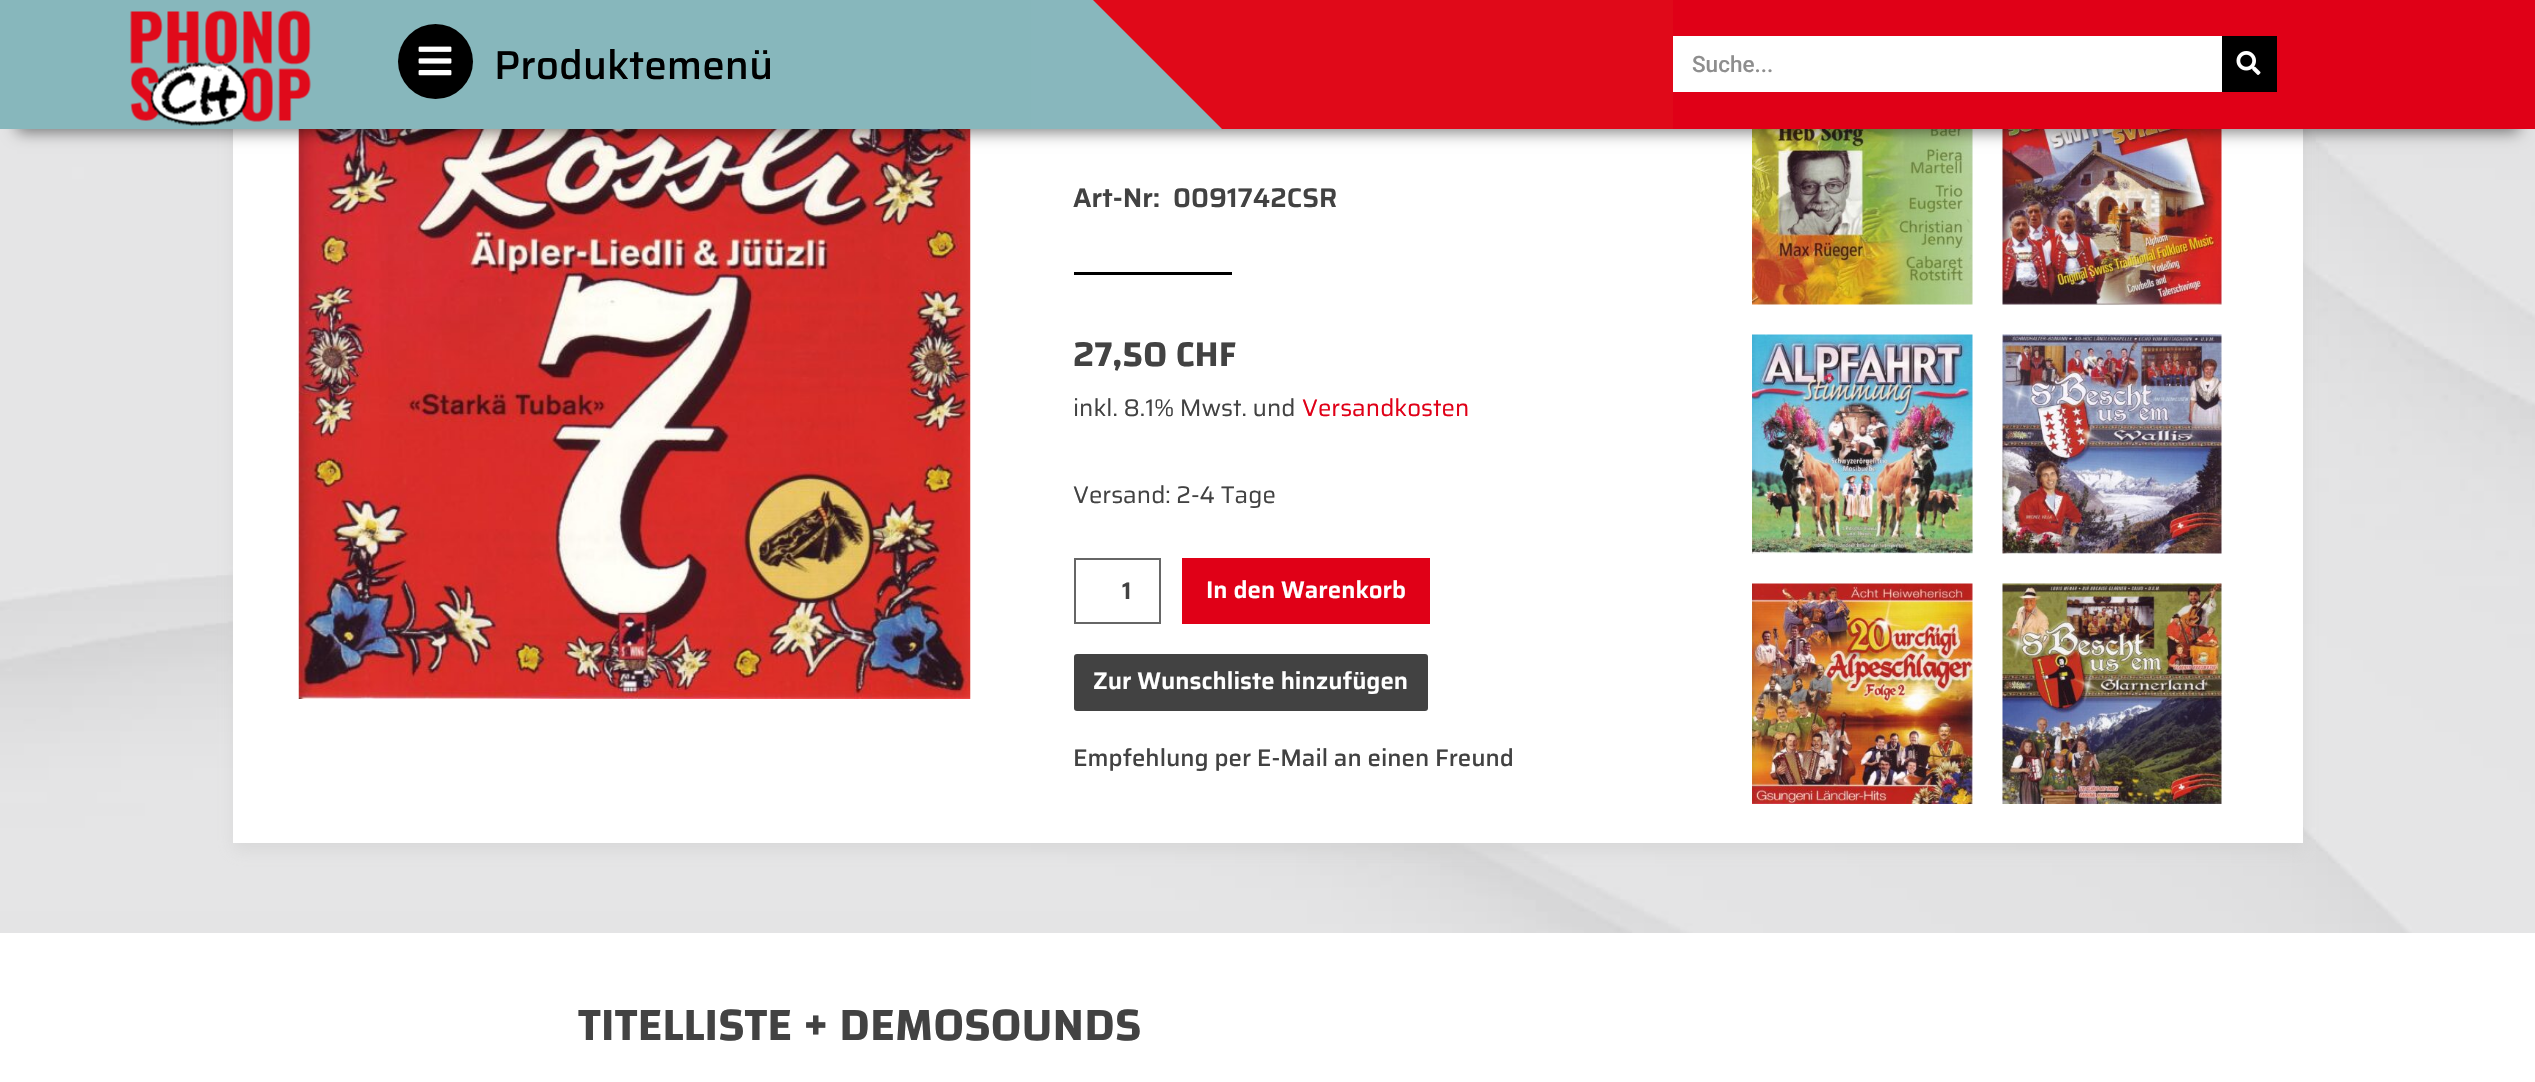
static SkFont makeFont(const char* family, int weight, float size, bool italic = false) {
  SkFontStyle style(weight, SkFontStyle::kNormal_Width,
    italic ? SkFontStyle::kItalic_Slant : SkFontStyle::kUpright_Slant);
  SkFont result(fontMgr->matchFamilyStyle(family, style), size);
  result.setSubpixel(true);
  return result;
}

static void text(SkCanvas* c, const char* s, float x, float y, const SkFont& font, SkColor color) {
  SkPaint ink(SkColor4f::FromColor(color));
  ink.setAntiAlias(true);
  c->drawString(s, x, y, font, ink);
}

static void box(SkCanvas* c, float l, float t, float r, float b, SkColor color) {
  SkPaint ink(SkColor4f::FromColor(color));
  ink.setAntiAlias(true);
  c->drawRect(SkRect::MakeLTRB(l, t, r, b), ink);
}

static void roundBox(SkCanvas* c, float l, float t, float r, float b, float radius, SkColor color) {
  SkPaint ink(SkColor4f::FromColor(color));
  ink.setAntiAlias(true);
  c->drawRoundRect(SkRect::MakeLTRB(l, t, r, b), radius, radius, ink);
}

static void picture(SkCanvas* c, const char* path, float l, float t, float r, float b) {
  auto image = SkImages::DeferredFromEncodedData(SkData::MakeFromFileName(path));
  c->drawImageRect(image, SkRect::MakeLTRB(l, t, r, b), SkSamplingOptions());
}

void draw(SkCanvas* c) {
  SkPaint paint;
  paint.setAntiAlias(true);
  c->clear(0xffffffff);
  box(c, 0, 129, 2535, 933, 0xffd6d6d8);
  picture(c, "img_04.png", 0, 129, 2535, 933);
  paint.setColor(0x80cccccc);
  paint.setMaskFilter(SkMaskFilter::MakeBlur(kNormal_SkBlurStyle, 7.5f));
  c->drawRect(SkRect::MakeLTRB(233, -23, 2303, 851), paint);
  paint.setMaskFilter(nullptr);
  box(c, 233, 129, 2303, 843, 0xffffffff);
  picture(c, "img_05.png", 298, 129, 971, 699);
  picture(c, "img_06.png", 1752, 129, 1973, 305);
  picture(c, "img_07.png", 2002, 129, 2222, 305);
  paint.setColor(0x80000000);
  paint.setMaskFilter(SkMaskFilter::MakeBlur(kNormal_SkBlurStyle, 7.5f));
  c->drawRect(SkRect::MakeLTRB(17, 36, 2519, 132), paint);
  paint.setMaskFilter(nullptr);
  box(c, 1673, 0, 2535, 129, 0xffe00017);
  box(c, 0, 0, 1031, 129, 0xff87b7bc);
  picture(c, "img_01.png", 130, 10, 311, 126);
  box(c, 1093, 0, 1673, 129, 0xffe00919);
  c->save();
  c->clipRect(SkRect::MakeLTRB(1031, 0, 1673, 129));
  paint.setColor(0xff88b7bd);
  c->drawPath(SkPathBuilder().moveTo(1030, -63).lineTo(1673, 580).lineTo(1030, 580).close().detach(), paint);
  c->restore();
  paint.setColor(0xff000000);
  c->drawCircle(435.5f, 61.5f, 37.5f, paint);
  picture(c, "img_02.png", 418, 46, 452, 76);
  SkFont face1 = makeFont("Saira", 500, 40.5f);
  text(c, "Produktemenü", 494, 79, face1, 0xff000000);
  box(c, 1673, 36, 2222, 92, 0xffffffff);
  SkFont face2 = makeFont("Roboto", 500, 22.5f);
  text(c, "Suche...", 1692, 72, face2, 0xff8e8e8e);
  box(c, 2222, 36, 2277, 92, 0xff000000);
  picture(c, "img_03.png", 2236, 51, 2261, 75);
  SkFont face3 = makeFont("Saira", 600, 27);
  text(c, "Art-Nr:", 1073, 207, face3, 0xff424242);
  text(c, "0091742CSR", 1173, 207, face3, 0xff424242);
  box(c, 1074, 272, 1232, 275, 0xff000000);
  SkFont face4 = makeFont("Changa", 600, 37.5f);
  text(c, "27,50 CHF", 1073, 366, face4, 0xff424242);
  SkFont face5 = makeFont("Saira", 400, 24);
  text(c, "inkl. 8.1% Mwst. und", 1073, 416, face5, 0xff424242);
  text(c, "Versandkosten", 1302, 416, face5, 0xffe00017);
  text(c, "Versand: 2-4 Tage", 1073, 503, face5, 0xff424242);
  paint.setStyle(SkPaint::kStroke_Style);
  paint.setStrokeWidth(2);
  paint.setColor(0xff666666);
  c->drawRect(SkRect::MakeLTRB(1075, 559, 1160, 623), paint);
  SkFont face6 = makeFont("Saira", 600, 24);
  text(c, "1", 1122, 599, face6, 0xff424242);
  box(c, 1182, 558, 1430, 624, 0xffe00017);
  text(c, "In den Warenkorb", 1206, 598, face6, 0xffffffff);
  roundBox(c, 1074, 654, 1428, 711, 3, 0xff424242);
  text(c, "Zur Wunschliste hinzufügen", 1093, 689, face6, 0xffffffff);
  SkFont face7 = makeFont("Saira", 500, 24);
  text(c, "Empfehlung per E-Mail an einen Freund", 1073, 766, face7, 0xff424242);
  picture(c, "img_08.png", 1752, 334, 1973, 554);
  picture(c, "img_09.png", 2002, 334, 2222, 554);
  picture(c, "img_10.png", 1752, 583, 1973, 804);
  picture(c, "img_11.png", 2002, 583, 2222, 804);
  SkFont face8 = makeFont("Changa", 600, 48);
  text(c, "TITELLISTE + DEMOSOUNDS", 578, 1040, face8, 0xff424242);
}
